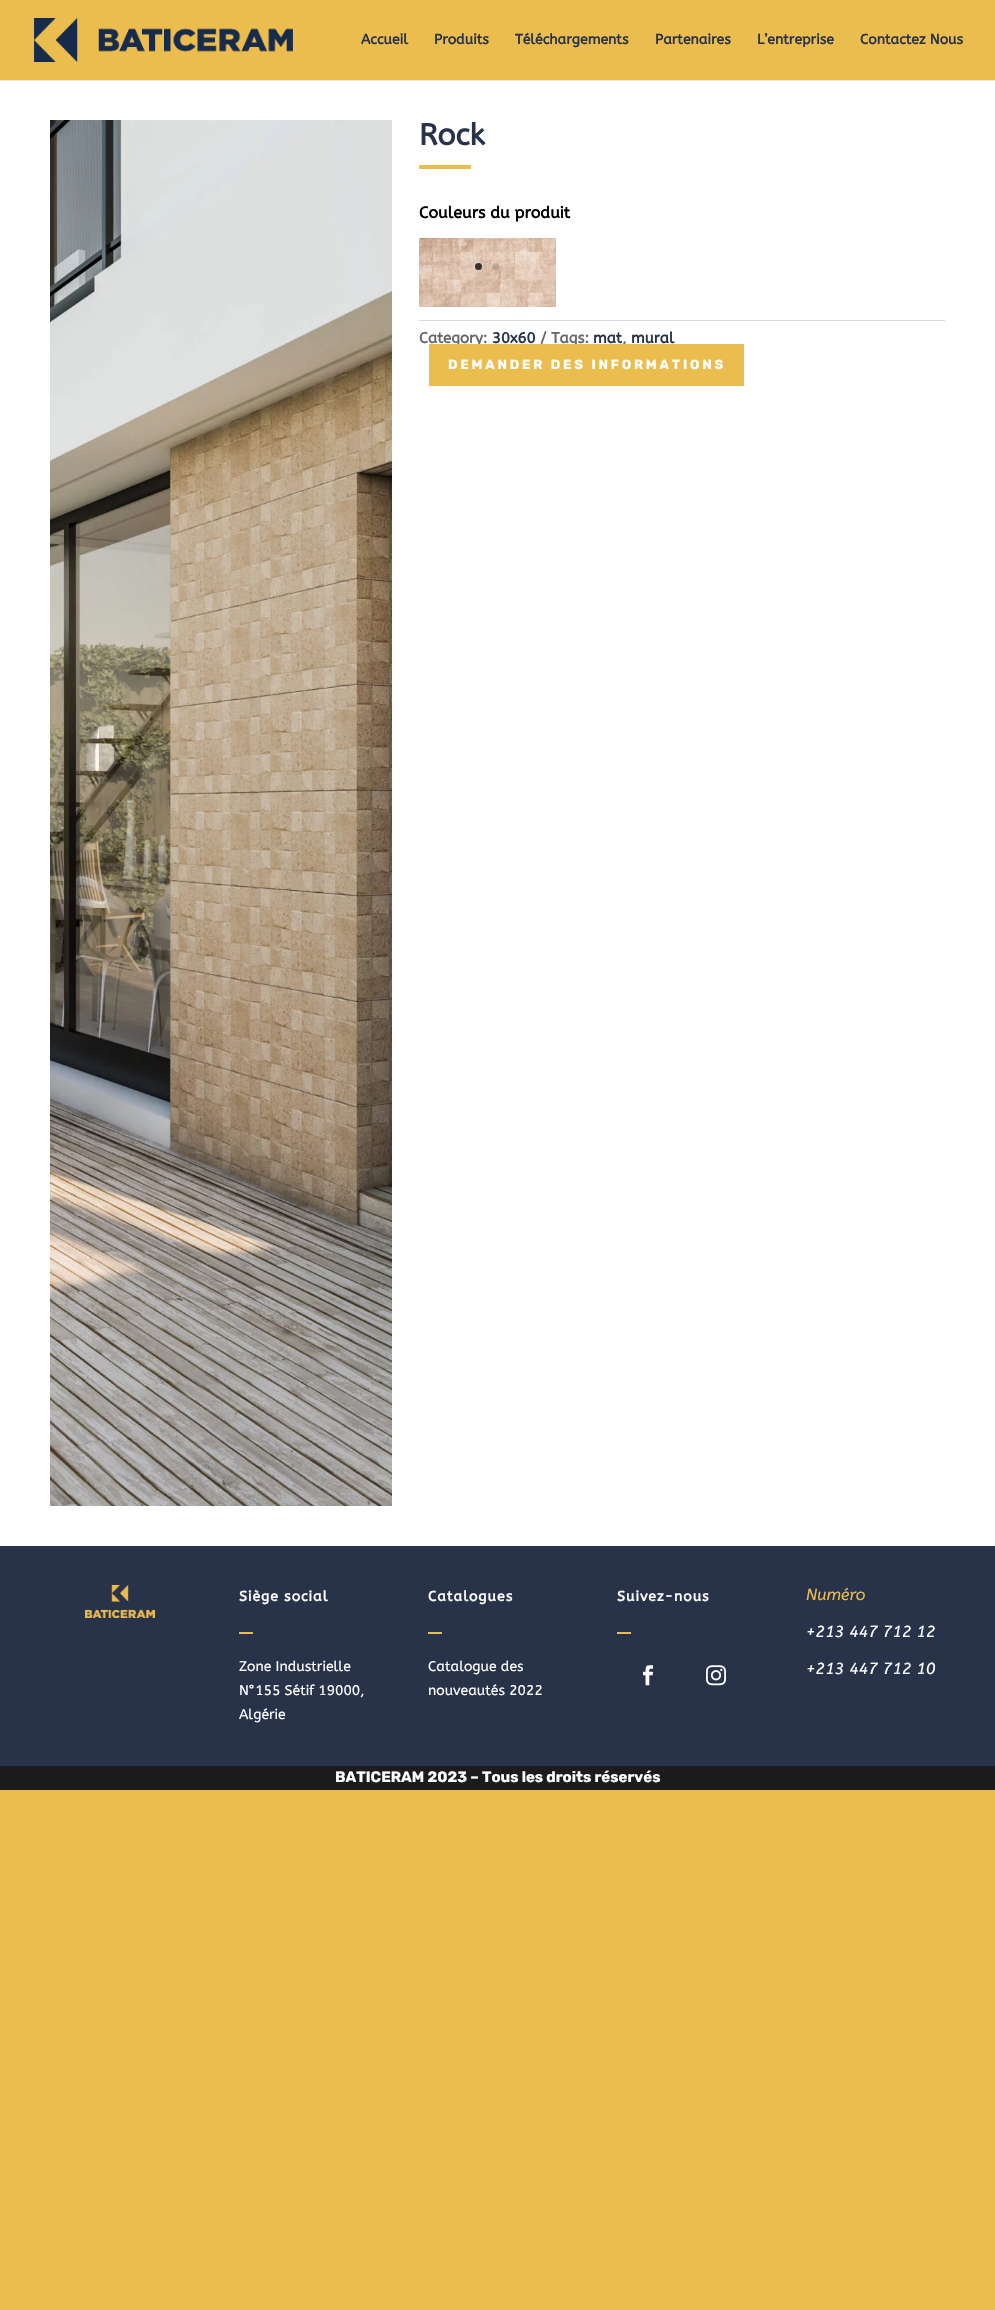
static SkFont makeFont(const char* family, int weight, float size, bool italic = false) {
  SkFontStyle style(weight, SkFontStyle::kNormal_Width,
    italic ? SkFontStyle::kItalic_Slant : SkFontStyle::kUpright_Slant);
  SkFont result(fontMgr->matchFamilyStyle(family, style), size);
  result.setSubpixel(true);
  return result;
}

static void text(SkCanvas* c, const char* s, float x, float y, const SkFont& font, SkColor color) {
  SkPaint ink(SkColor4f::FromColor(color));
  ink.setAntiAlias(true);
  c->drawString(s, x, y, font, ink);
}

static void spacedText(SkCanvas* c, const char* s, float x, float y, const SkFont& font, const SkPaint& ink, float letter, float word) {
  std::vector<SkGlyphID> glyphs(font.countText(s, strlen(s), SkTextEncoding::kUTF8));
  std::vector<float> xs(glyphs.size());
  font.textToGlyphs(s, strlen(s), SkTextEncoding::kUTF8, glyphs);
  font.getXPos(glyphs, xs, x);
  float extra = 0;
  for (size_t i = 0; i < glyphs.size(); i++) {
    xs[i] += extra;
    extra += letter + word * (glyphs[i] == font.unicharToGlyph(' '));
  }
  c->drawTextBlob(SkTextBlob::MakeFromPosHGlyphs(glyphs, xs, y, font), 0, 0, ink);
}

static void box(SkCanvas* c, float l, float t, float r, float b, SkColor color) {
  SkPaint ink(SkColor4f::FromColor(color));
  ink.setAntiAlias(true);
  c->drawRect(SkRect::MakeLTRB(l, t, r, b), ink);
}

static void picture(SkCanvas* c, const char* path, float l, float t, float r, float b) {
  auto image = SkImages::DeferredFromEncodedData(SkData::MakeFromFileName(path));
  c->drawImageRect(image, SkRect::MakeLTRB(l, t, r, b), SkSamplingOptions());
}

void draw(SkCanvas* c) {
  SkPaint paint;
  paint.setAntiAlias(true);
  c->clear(0xffebbc4e);
  box(c, 0, 80, 995, 81, 0xffe6e6e6);
  picture(c, "img_01.png", 34, 18, 293, 62);
  SkFont face1 = makeFont("ABeeZee", 700, 14);
  text(c, "Accueil", 361, 44, face1, 0xff28334a);
  text(c, "Produits", 434, 44, face1, 0xff28334a);
  text(c, "Téléchargements", 515, 44, face1, 0xff28334a);
  text(c, "Partenaires", 655, 44, face1, 0xff28334a);
  text(c, "L’entreprise", 757, 44, face1, 0xff28334a);
  text(c, "Contactez Nous", 860, 44, face1, 0xff28334a);
  box(c, 0, 81, 995, 1546, 0xffffffff);
  picture(c, "img_02.png", 50, 120, 392, 1506);
  SkFont face2 = makeFont("ABeeZee", 700, 30);
  text(c, "Rock", 419, 145, face2, 0xff28334a);
  box(c, 419, 165, 471, 169, 0xffebbc4e);
  SkFont face3 = makeFont("ABeeZee", 700, 16);
  text(c, "Couleurs du produit", 419, 218, face3, 0xff000000);
  picture(c, "img_03.png", 419, 238, 556, 307);
  paint.setColor(0xff333333);
  c->drawCircle(478.5f, 266.5f, 3.5f, paint);
  paint.setColor(0x26000000);
  c->drawCircle(495.5f, 266.5f, 3.5f, paint);
  box(c, 419, 320, 945, 321, 0xffdadada);
  SkFont face4 = makeFont("ABeeZee", 700, 15);
  text(c, "Category:", 419, 343, face4, 0xff666666);
  text(c, "30x60", 492, 343, face4, 0xff28334a);
  text(c, "/ Tags:", 540, 343, face4, 0xff666666);
  text(c, "mat", 593, 343, face4, 0xff28334a);
  text(c, ",", 622, 343, face4, 0xff666666);
  text(c, "mural", 631, 343, face4, 0xff28334a);
  box(c, 429, 344, 744, 386, 0xffebbc4e);
  SkFont face5 = makeFont("Rubik", 700, 13.2f);
  paint.setColor(0xffffffff);
  spacedText(c, "DEMANDER DES INFORMATIONS", 448, 369, face5, paint, 2.8f, 0);
  box(c, 0, 1546, 995, 1766, 0xff28334a);
  picture(c, "img_04.png", 85, 1585, 155, 1618);
  spacedText(c, "Siège social", 239, 1601, face1, paint, 1, 0);
  box(c, 239, 1632, 253, 1634, 0xffebbc4e);
  SkFont face6 = makeFont("ABeeZee", 400, 14);
  text(c, "Zone Industrielle", 239, 1671, face6, 0xffffffff);
  text(c, "N°155 Sétif 19000,", 239, 1695, face6, 0xffffffff);
  text(c, "Algérie", 239, 1719, face6, 0xffffffff);
  spacedText(c, "Catalogues", 428, 1601, face1, paint, 1, 0);
  box(c, 428, 1632, 442, 1634, 0xffebbc4e);
  text(c, "Catalogue des", 428, 1671, face6, 0xffffffff);
  text(c, "nouveautés 2022", 428, 1695, face6, 0xffffffff);
  spacedText(c, "Suivez-nous", 617, 1601, face1, paint, 1, 0);
  box(c, 617, 1632, 631, 1634, 0xffebbc4e);
  picture(c, "img_05.png", 643, 1665, 653, 1686);
  picture(c, "img_06.png", 706, 1665, 726, 1686);
  SkFont face7 = makeFont("ABeeZee", 400, 16, true);
  text(c, "Numéro", 806, 1600, face7, 0xffebbc4e);
  text(c, "+213 447 712 12", 806, 1637, face7, 0xffffffff);
  text(c, "+213 447 712 10", 806, 1674, face7, 0xffffffff);
  box(c, 0, 1766, 995, 1790, 0xff1c1c1c);
  SkFont face8 = makeFont("Rubik", 700, 15);
  text(c, "BATICERAM 2023 – Tous les droits réservés", 335, 1782, face8, 0xffffffff);
}
